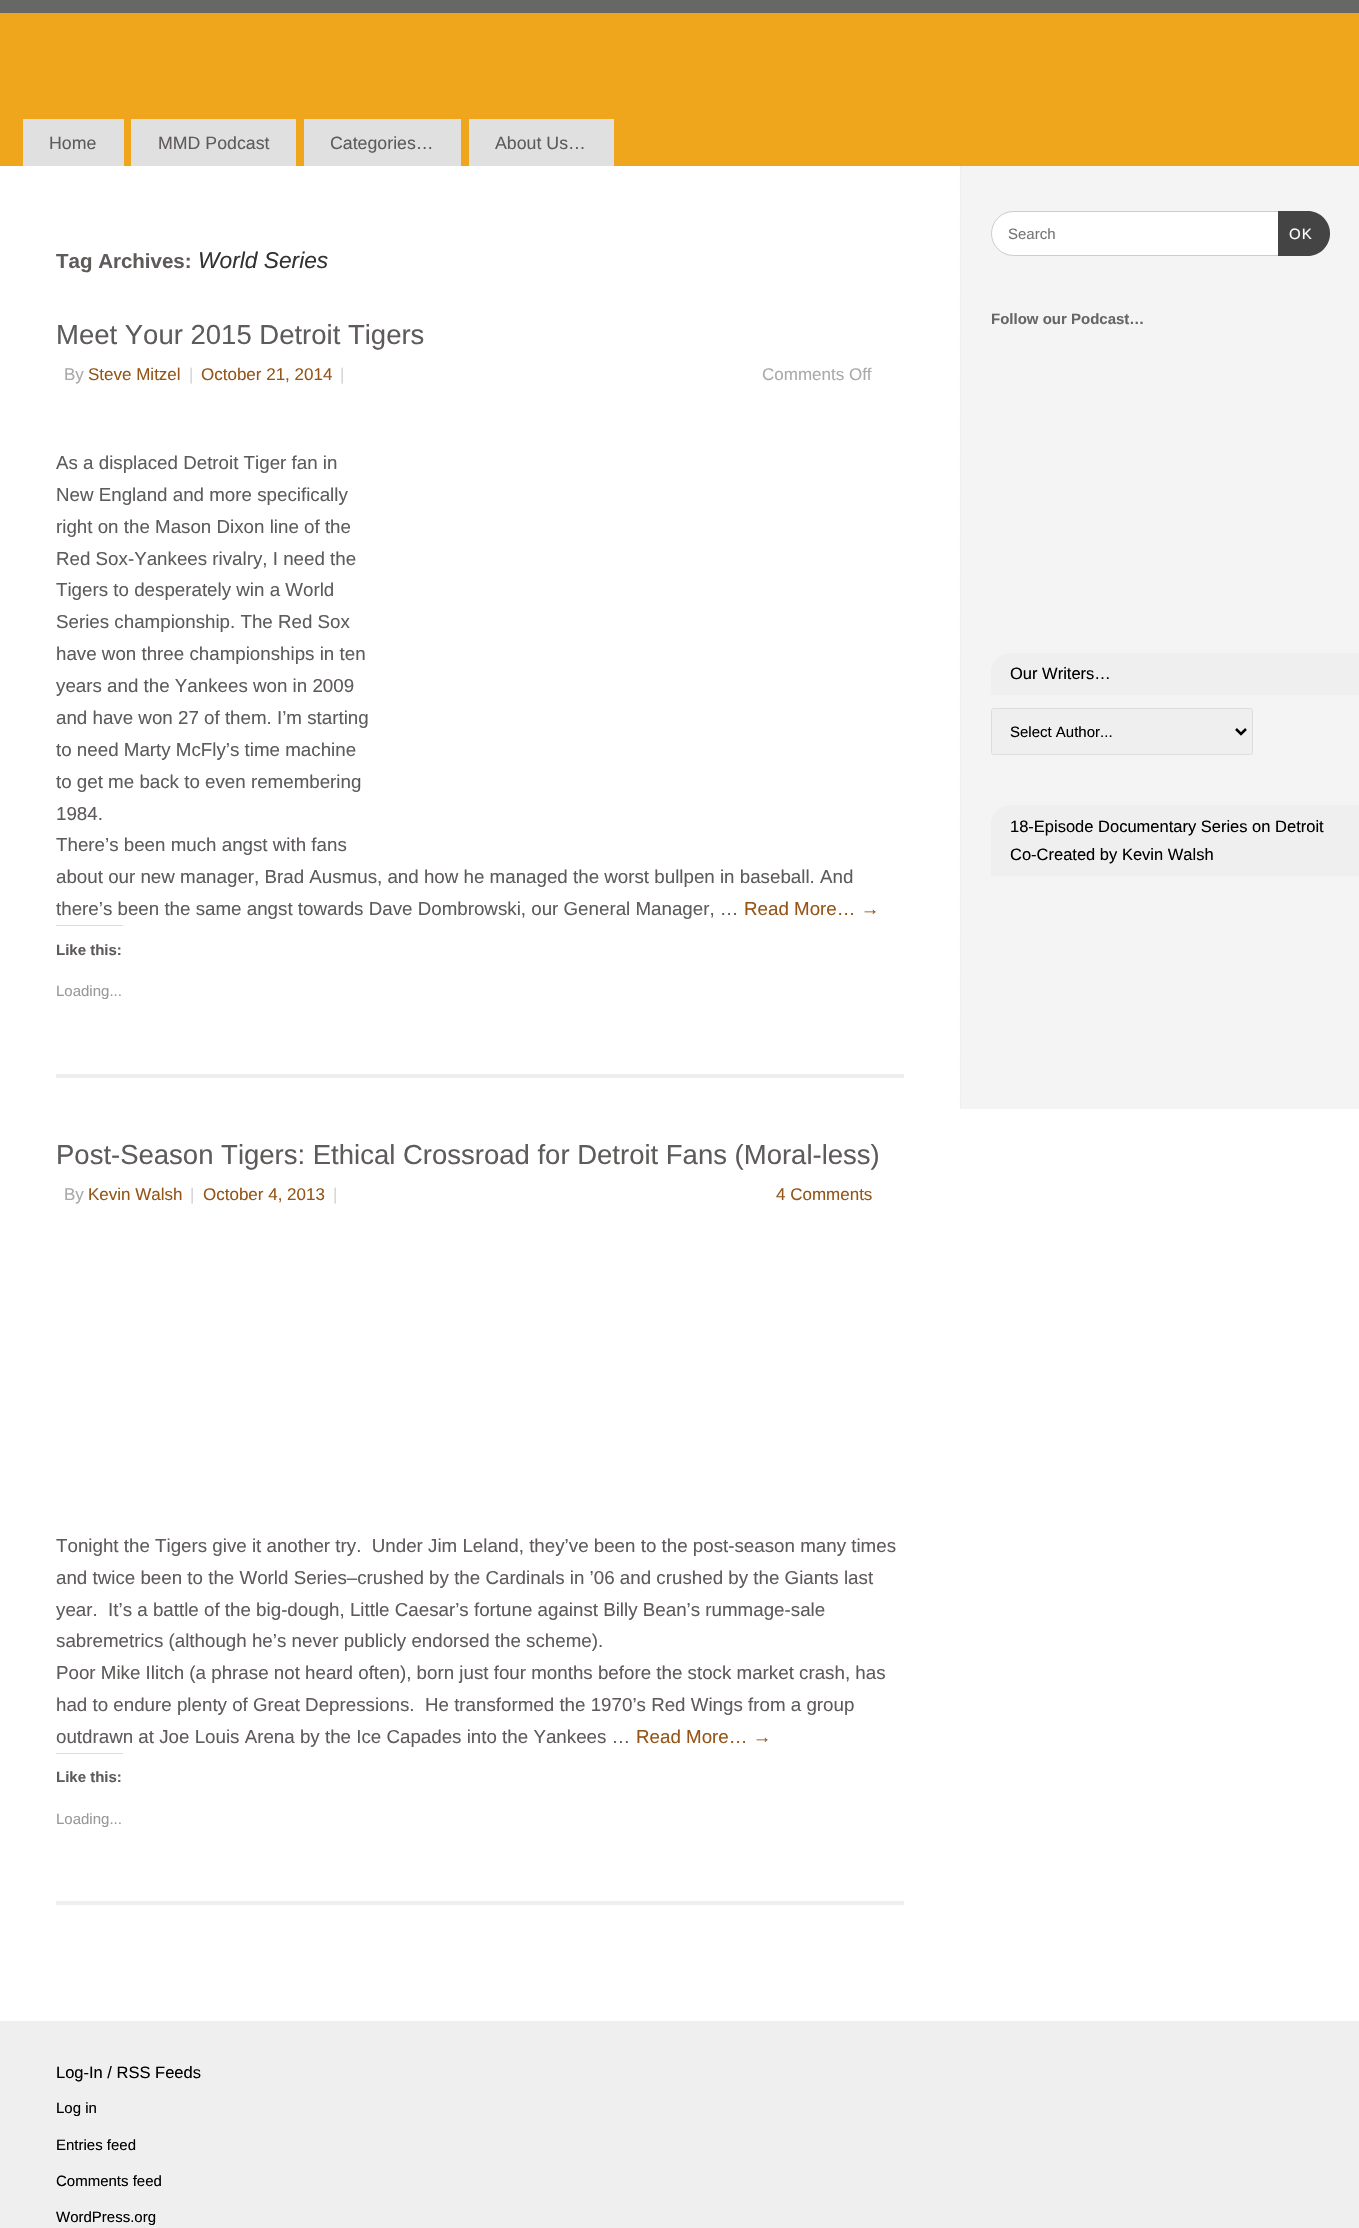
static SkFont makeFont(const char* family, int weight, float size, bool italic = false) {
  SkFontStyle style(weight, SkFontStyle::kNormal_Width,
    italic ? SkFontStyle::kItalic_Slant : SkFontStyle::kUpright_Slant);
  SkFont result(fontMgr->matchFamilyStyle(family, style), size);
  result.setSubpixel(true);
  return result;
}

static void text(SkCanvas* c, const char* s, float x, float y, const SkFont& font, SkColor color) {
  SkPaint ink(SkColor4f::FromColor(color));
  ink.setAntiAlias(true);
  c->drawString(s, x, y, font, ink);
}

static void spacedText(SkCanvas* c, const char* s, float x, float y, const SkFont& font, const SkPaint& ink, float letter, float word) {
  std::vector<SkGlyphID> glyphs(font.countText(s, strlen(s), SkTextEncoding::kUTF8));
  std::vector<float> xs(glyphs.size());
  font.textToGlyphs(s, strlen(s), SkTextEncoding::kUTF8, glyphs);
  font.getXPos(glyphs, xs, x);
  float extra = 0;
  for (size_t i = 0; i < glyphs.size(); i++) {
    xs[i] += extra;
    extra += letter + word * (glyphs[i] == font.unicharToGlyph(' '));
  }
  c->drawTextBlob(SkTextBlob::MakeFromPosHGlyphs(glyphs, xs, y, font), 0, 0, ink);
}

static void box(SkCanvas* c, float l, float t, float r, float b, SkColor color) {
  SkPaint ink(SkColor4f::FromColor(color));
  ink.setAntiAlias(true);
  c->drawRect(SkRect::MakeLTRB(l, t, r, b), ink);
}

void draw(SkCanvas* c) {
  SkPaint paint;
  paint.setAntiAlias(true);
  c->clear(0xff676766);
  box(c, 0, 13, 1359, 166, 0xffefa61c);
  box(c, 23, 119, 124, 166, 0xffe0e0e0);
  SkFont face1 = makeFont("Liberation Sans", 400, 17.75f);
  text(c, "Home", 49, 149, face1, 0xff5f5b5b);
  box(c, 131, 119, 296, 166, 0xffe0e0e0);
  text(c, "MMD Podcast", 158, 149, face1, 0xff5f5b5b);
  box(c, 304, 119, 461, 166, 0xffe0e0e0);
  text(c, "Categories…", 330, 149, face1, 0xff5f5b5b);
  box(c, 469, 119, 614, 166, 0xffe0e0e0);
  text(c, "About Us…", 495, 149, face1, 0xff5f5b5b);
  box(c, 0, 166, 1359, 2021, 0xffffffff);
  SkFont face2 = makeFont("Liberation Sans", 700, 20.5f);
  text(c, "Tag Archives:", 56, 268, face2, 0xff5f5b5b);
  SkFont face3 = makeFont("Liberation Sans", 400, 22.75f, true);
  text(c, "World Series", 198, 268, face3, 0xff333333);
  box(c, 56, 1074, 904, 1078, 0xffeeeeee);
  SkFont face4 = makeFont("Liberation Sans", 400, 27.5f);
  text(c, "Meet Your 2015 Detroit Tigers", 56, 344, face4, 0xff5f5b5b);
  SkFont face5 = makeFont("Liberation Sans", 400, 17);
  text(c, "By", 64, 380, face5, 0xffaaaaaa);
  text(c, "Steve Mitzel", 88, 380, face5, 0xff955517);
  text(c, "|", 189, 380, face5, 0xffd5d5d5);
  text(c, "October 21, 2014", 201, 380, face5, 0xff955517);
  text(c, "|", 340, 380, face5, 0xffd5d5d5);
  text(c, "Comments Off", 762, 380, face5, 0xffaaaaaa);
  SkFont face6 = makeFont("Liberation Sans", 400, 18.75f);
  text(c, "As a displaced Detroit Tiger fan in", 56, 469, face6, 0xff5f5b5b);
  text(c, "New England and more specifically", 56, 501, face6, 0xff5f5b5b);
  text(c, "right on the Mason Dixon line of the", 56, 533, face6, 0xff5f5b5b);
  text(c, "Red Sox-Yankees rivalry, I need the", 56, 565, face6, 0xff5f5b5b);
  text(c, "Tigers to desperately win a World", 56, 596, face6, 0xff5f5b5b);
  text(c, "Series championship. The Red Sox", 56, 628, face6, 0xff5f5b5b);
  text(c, "have won three championships in ten", 56, 660, face6, 0xff5f5b5b);
  text(c, "years and the Yankees won in 2009", 56, 692, face6, 0xff5f5b5b);
  text(c, "and have won 27 of them. I’m starting", 56, 724, face6, 0xff5f5b5b);
  text(c, "to need Marty McFly’s time machine", 56, 756, face6, 0xff5f5b5b);
  text(c, "to get me back to even remembering", 56, 788, face6, 0xff5f5b5b);
  text(c, "1984.", 56, 820, face6, 0xff5f5b5b);
  text(c, "There’s been much angst with fans", 56, 851, face6, 0xff5f5b5b);
  text(c, "about our new manager, Brad Ausmus, and how he managed the worst bullpen in baseball. And", 56, 883, face6, 0xff5f5b5b);
  text(c, "there’s been the same angst towards Dave Dombrowski, our General Manager, …", 56, 915, face6, 0xff5f5b5b);
  text(c, "Read More… →", 744, 915, face6, 0xff955517);
  box(c, 56, 925, 123, 926, 0xffdcdcde);
  SkFont face7 = makeFont("Liberation Sans", 700, 15);
  text(c, "Like this:", 56, 955, face7, 0xff5f5b5b);
  SkFont face8 = makeFont("Liberation Sans", 400, 15);
  text(c, "Loading...", 56, 996, face8, 0xff999999);
  box(c, 56, 1901, 904, 1905, 0xffeeeeee);
  text(c, "Post-Season Tigers: Ethical Crossroad for Detroit Fans (Moral-less)", 56, 1164, face4, 0xff5f5b5b);
  text(c, "By", 64, 1200, face5, 0xffaaaaaa);
  text(c, "Kevin Walsh", 88, 1200, face5, 0xff955517);
  text(c, "|", 190, 1200, face5, 0xffd5d5d5);
  text(c, "October 4, 2013", 203, 1200, face5, 0xff955517);
  text(c, "|", 333, 1200, face5, 0xffd5d5d5);
  text(c, "4 Comments", 776, 1200, face5, 0xff955517);
  text(c, "Tonight the Tigers give it another try.  Under Jim Leland, they’ve been to the post-season many times", 56, 1552, face6, 0xff5f5b5b);
  text(c, "and twice been to the World Series–crushed by the Cardinals in ’06 and crushed by the Giants last", 56, 1584, face6, 0xff5f5b5b);
  text(c, "year.  It’s a battle of the big-dough, Little Caesar’s fortune against Billy Bean’s rummage-sale", 56, 1616, face6, 0xff5f5b5b);
  text(c, "sabremetrics (although he’s never publicly endorsed the scheme).", 56, 1647, face6, 0xff5f5b5b);
  text(c, "Poor Mike Ilitch (a phrase not heard often), born just four months before the stock market crash, has", 56, 1679, face6, 0xff5f5b5b);
  text(c, "had to endure plenty of Great Depressions.  He transformed the 1970’s Red Wings from a group", 56, 1711, face6, 0xff5f5b5b);
  text(c, "outdrawn at Joe Louis Arena by the Ice Capades into the Yankees …", 56, 1743, face6, 0xff5f5b5b);
  text(c, "Read More… →", 636, 1743, face6, 0xff955517);
  box(c, 56, 1753, 123, 1754, 0xffdcdcde);
  text(c, "Like this:", 56, 1782, face7, 0xff5f5b5b);
  text(c, "Loading...", 56, 1824, face8, 0xff999999);
  box(c, 960, 166, 1359, 1109, 0xfff4f4f4);
  paint.setStyle(SkPaint::kStroke_Style);
  paint.setStrokeWidth(1.2f);
  paint.setColor(0xffeaeaea);
  paint.setPathEffect(SkDashPathEffect::Make({{1.25f, 1.25f}}, 0));
  c->drawPath(SkPathBuilder().moveTo(960.5f, 166).lineTo(960.5f, 1109).detach(), paint);
  paint.setPathEffect(nullptr);
  paint.setStyle(SkPaint::kFill_Style);
  paint.setColor(0xffffffff);
  c->drawRoundRect(SkRect::MakeLTRB(991.5f, 211.5f, 1329.5f, 255.5f), 22, 22, paint);
  paint.setStyle(SkPaint::kStroke_Style);
  paint.setStrokeWidth(1);
  paint.setColor(0xffcccccc);
  c->drawRoundRect(SkRect::MakeLTRB(991.5f, 211.5f, 1329.5f, 255.5f), 22, 22, paint);
  text(c, "Search", 1008, 239, face8, 0xff757575);
  paint.setStyle(SkPaint::kFill_Style);
  paint.setColor(0xff444444);
  c->drawPath(SkPathBuilder().moveTo(1278, 211).lineTo(1307.5f, 211).cubicTo(1320, 211, 1330, 221, 1330, 233.5f).cubicTo(1330, 246, 1320, 256, 1307.5f, 256).lineTo(1278, 256).close().detach(), paint);
  paint.setColor(0xffffffff);
  spacedText(c, "OK", 1289, 239, face8, paint, 1, 0);
  text(c, "Follow our Podcast…", 991, 324, face7, 0xff666666);
  paint.setColor(0xfff0efef);
  c->drawPath(SkPathBuilder().moveTo(1010, 653).lineTo(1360, 653).lineTo(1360, 695).lineTo(991, 695).lineTo(991, 672).cubicTo(991, 661.5f, 999.5f, 653, 1010, 653).close().detach(), paint);
  SkFont face9 = makeFont("Liberation Sans", 400, 16.5f);
  text(c, "Our Writers…", 1010, 679, face9, 0xff000000);
  paint.setColor(0xffefefef);
  c->drawRoundRect(SkRect::MakeLTRB(991.5f, 708.5f, 1252.5f, 754.5f), 2, 2, paint);
  paint.setStyle(SkPaint::kStroke_Style);
  paint.setColor(0xffdddddd);
  c->drawRoundRect(SkRect::MakeLTRB(991.5f, 708.5f, 1252.5f, 754.5f), 2, 2, paint);
  paint.setStrokeWidth(2.5f);
  paint.setColor(0xff000000);
  c->drawPath(SkPathBuilder().moveTo(1236, 729).lineTo(1241, 734).lineTo(1246, 729).detach(), paint);
  text(c, "Select Author...", 1010, 737, face8, 0xff000000);
  paint.setStyle(SkPaint::kFill_Style);
  paint.setColor(0xfff0efef);
  c->drawPath(SkPathBuilder().moveTo(1010, 805).lineTo(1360, 805).lineTo(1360, 876).lineTo(991, 876).lineTo(991, 824).cubicTo(991, 813.5f, 999.5f, 805, 1010, 805).close().detach(), paint);
  text(c, "18-Episode Documentary Series on Detroit", 1010, 832, face9, 0xff000000);
  text(c, "Co-Created by Kevin Walsh", 1010, 860, face9, 0xff000000);
  box(c, 0, 2021, 1359, 2228, 0xfff0efef);
  text(c, "Log-In / RSS Feeds", 56, 2078, face9, 0xff000000);
  text(c, "Log in", 56, 2113, face8, 0xff000000);
  text(c, "Entries feed", 56, 2150, face8, 0xff000000);
  text(c, "Comments feed", 56, 2186, face8, 0xff000000);
  text(c, "WordPress.org", 56, 2222, face8, 0xff000000);
}
